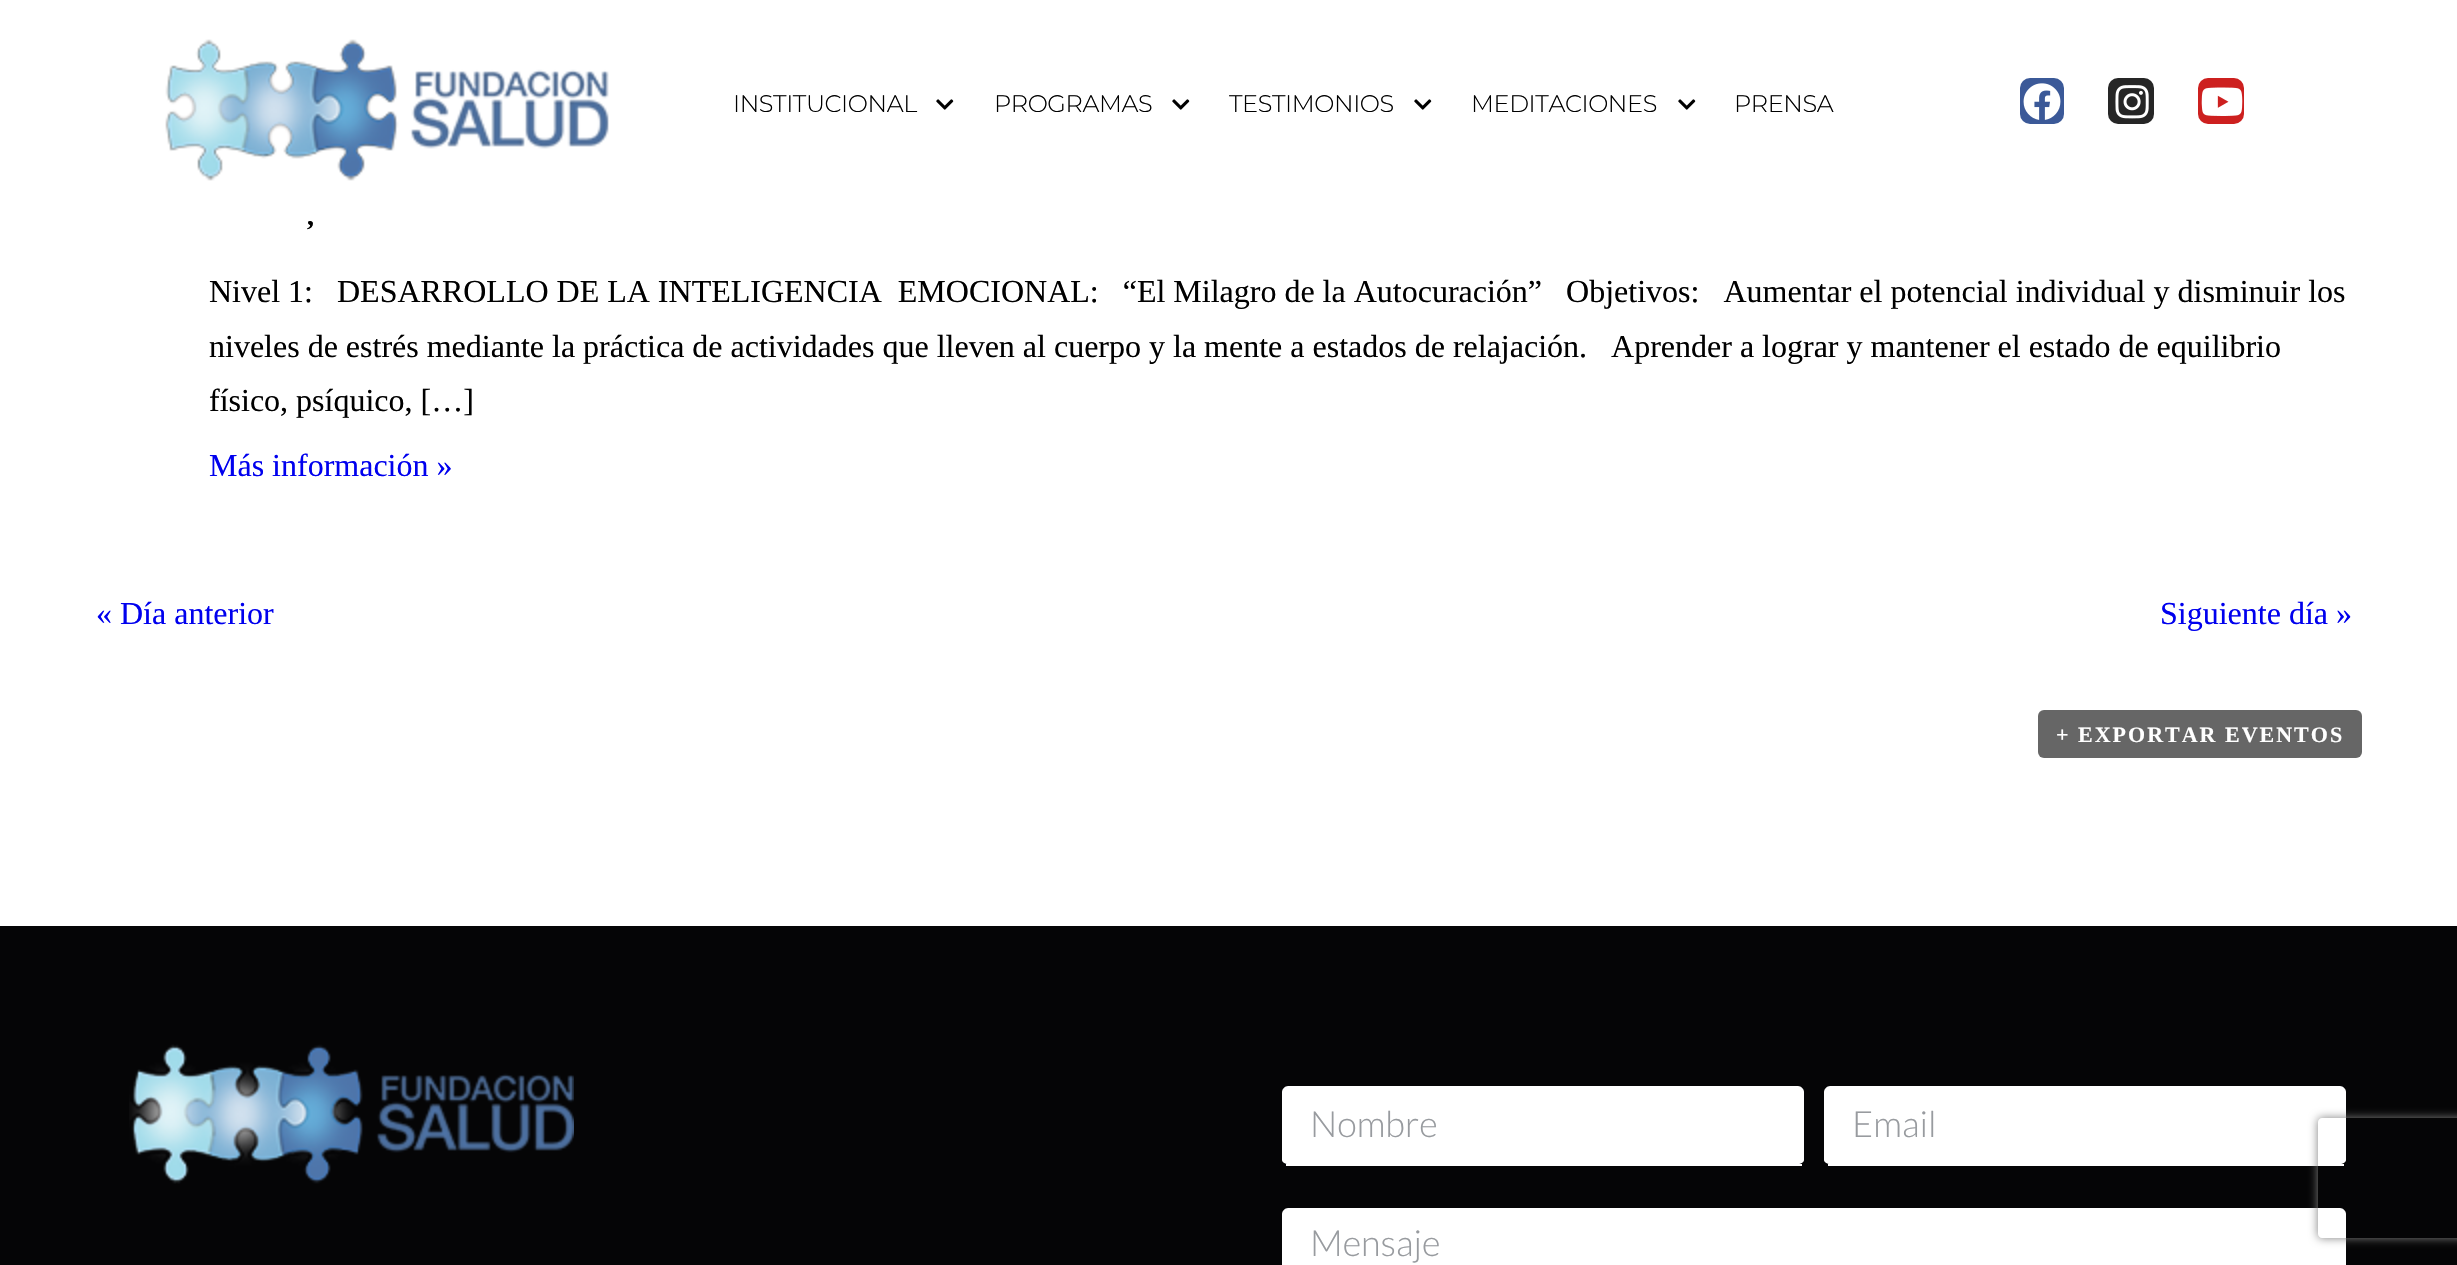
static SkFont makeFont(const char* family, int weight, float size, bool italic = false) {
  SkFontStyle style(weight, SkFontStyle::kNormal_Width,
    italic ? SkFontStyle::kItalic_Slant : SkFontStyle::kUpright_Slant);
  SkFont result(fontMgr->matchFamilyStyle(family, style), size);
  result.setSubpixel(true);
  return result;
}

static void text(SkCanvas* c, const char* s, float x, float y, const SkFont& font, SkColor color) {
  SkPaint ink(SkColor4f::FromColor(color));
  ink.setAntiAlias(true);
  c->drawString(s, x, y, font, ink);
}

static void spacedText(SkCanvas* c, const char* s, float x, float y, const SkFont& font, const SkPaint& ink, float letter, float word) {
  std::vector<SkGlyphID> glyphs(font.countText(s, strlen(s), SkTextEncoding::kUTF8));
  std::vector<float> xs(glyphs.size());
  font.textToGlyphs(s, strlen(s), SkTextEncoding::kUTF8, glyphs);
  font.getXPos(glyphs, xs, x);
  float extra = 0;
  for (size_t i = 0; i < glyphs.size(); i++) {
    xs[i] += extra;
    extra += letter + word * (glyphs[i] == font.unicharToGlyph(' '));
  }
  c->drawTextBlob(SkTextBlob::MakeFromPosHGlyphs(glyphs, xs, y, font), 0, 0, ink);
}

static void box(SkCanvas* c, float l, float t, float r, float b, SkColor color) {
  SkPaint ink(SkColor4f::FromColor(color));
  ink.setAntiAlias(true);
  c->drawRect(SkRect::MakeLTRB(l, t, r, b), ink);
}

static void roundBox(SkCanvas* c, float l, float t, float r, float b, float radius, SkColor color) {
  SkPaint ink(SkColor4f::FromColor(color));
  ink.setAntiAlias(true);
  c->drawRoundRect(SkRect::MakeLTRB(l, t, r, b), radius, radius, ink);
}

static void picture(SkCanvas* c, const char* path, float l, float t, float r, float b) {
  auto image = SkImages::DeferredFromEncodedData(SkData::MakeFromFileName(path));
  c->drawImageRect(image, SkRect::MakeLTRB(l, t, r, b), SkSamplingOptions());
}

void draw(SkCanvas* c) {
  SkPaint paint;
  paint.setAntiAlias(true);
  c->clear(0xffffffff);
  picture(c, "img_01.png", 165, 39, 609, 181);
  SkFont face1 = makeFont("Montserrat", 300, 24);
  paint.setColor(0xff000000);
  spacedText(c, "INSTITUCIONAL", 733, 112, face1, paint, -0.4f, 0);
  picture(c, "img_02.png", 936, 99, 954, 110);
  spacedText(c, "PROGRAMAS", 994, 112, face1, paint, -0.4f, 0);
  picture(c, "img_02.png", 1172, 99, 1190, 110);
  spacedText(c, "TESTIMONIOS", 1229, 112, face1, paint, -0.4f, 0);
  picture(c, "img_02.png", 1414, 99, 1432, 110);
  spacedText(c, "MEDITACIONES", 1471, 112, face1, paint, -0.4f, 0);
  picture(c, "img_02.png", 1678, 99, 1696, 110);
  spacedText(c, "PRENSA", 1734, 112, face1, paint, -0.4f, 0);
  roundBox(c, 2020, 78, 2064, 124, 10, 0xff3b5998);
  picture(c, "img_03.png", 2023, 83, 2061, 120);
  roundBox(c, 2108, 78, 2154, 124, 10, 0xff262626);
  picture(c, "img_04.png", 2115, 85, 2149, 119);
  roundBox(c, 2198, 78, 2244, 124, 10, 0xffcd201f);
  picture(c, "img_05.png", 2201, 87, 2243, 116);
  SkFont face2 = makeFont("Liberation Serif", 700, 28);
  text(c, ",", 307, 225, face2, 0xff000000);
  SkFont face3 = makeFont("Liberation Serif", 400, 32);
  text(c, "Nivel 1:   DESARROLLO DE LA INTELIGENCIA  EMOCIONAL:   “El Milagro de la Autocuración”   Objetivos:   Aumentar el potencial individual y disminuir los", 209, 302, face3, 0xff000000);
  text(c, "niveles de estrés mediante la práctica de actividades que lleven al cuerpo y la mente a estados de relajación.   Aprender a lograr y mantener el estado de equilibrio", 209, 357, face3, 0xff000000);
  text(c, "físico, psíquico, […]", 209, 411, face3, 0xff000000);
  text(c, "Más información »", 209, 476, face3, 0xff0000ee);
  text(c, "« Día anterior", 96, 624, face3, 0xff0000ee);
  text(c, "Siguiente día »", 2160, 624, face3, 0xff0000ee);
  roundBox(c, 2038, 710, 2362, 758, 6, 0xff666666);
  SkFont face4 = makeFont("Liberation Serif", 700, 22);
  paint.setColor(0xffffffff);
  spacedText(c, "+ EXPORTAR EVENTOS", 2056, 742, face4, paint, 2, 0);
  box(c, 0, 926, 2457, 1265, 0xff050506);
  picture(c, "img_06.png", 129, 1044, 574, 1184);
  c->drawPath(SkPathBuilder().moveTo(1288, 1086).lineTo(1798, 1086).cubicTo(1801, 1086, 1804, 1089, 1804, 1092).lineTo(1804, 1160).cubicTo(1804, 1162, 1801, 1164, 1798, 1164).lineTo(1288, 1164).cubicTo(1285, 1164, 1282, 1162, 1282, 1160).lineTo(1282, 1092).cubicTo(1282, 1089, 1285, 1086, 1288, 1086).close().detach(), paint);
  box(c, 1286, 1164, 1802, 1166, 0xffffffff);
  SkFont face5 = makeFont("Lato", 300, 36);
  text(c, "Nombre", 1310, 1137, face5, 0xff989b9f);
  c->drawPath(SkPathBuilder().moveTo(1830, 1086).lineTo(2340, 1086).cubicTo(2343, 1086, 2346, 1089, 2346, 1092).lineTo(2346, 1160).cubicTo(2346, 1162, 2343, 1164, 2340, 1164).lineTo(1830, 1164).cubicTo(1827, 1164, 1824, 1162, 1824, 1160).lineTo(1824, 1092).cubicTo(1824, 1089, 1827, 1086, 1830, 1086).close().detach(), paint);
  box(c, 1828, 1164, 2344, 1166, 0xffffffff);
  text(c, "Email", 1852, 1137, face5, 0xff989b9f);
  c->drawPath(SkPathBuilder().moveTo(1288, 1208).lineTo(2340, 1208).cubicTo(2343, 1208, 2346, 1211, 2346, 1214).lineTo(2346, 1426).cubicTo(2346, 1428, 2343, 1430, 2340, 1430).lineTo(1288, 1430).cubicTo(1285, 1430, 1282, 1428, 1282, 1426).lineTo(1282, 1214).cubicTo(1282, 1211, 1285, 1208, 1288, 1208).close().detach(), paint);
  text(c, "Mensaje", 1310, 1256, face5, 0xff989b9f);
  c->save();
  c->clipPath(SkPathBuilder(SkPathFillType::kEvenOdd).moveTo(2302, 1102).lineTo(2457, 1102).lineTo(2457, 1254).lineTo(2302, 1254).close().moveTo(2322, 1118).lineTo(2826, 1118).cubicTo(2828, 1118, 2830, 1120, 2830, 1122).lineTo(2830, 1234).cubicTo(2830, 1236, 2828, 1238, 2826, 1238).lineTo(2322, 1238).cubicTo(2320, 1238, 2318, 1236, 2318, 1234).lineTo(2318, 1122).cubicTo(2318, 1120, 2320, 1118, 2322, 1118).close().detach(), true);
  paint.setColor(0xff808080);
  paint.setMaskFilter(SkMaskFilter::MakeBlur(kNormal_SkBlurStyle, 5));
  c->drawRoundRect(SkRect::MakeLTRB(2318, 1118, 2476, 1238), 4, 4, paint);
  paint.setMaskFilter(nullptr);
  c->restore();
}
